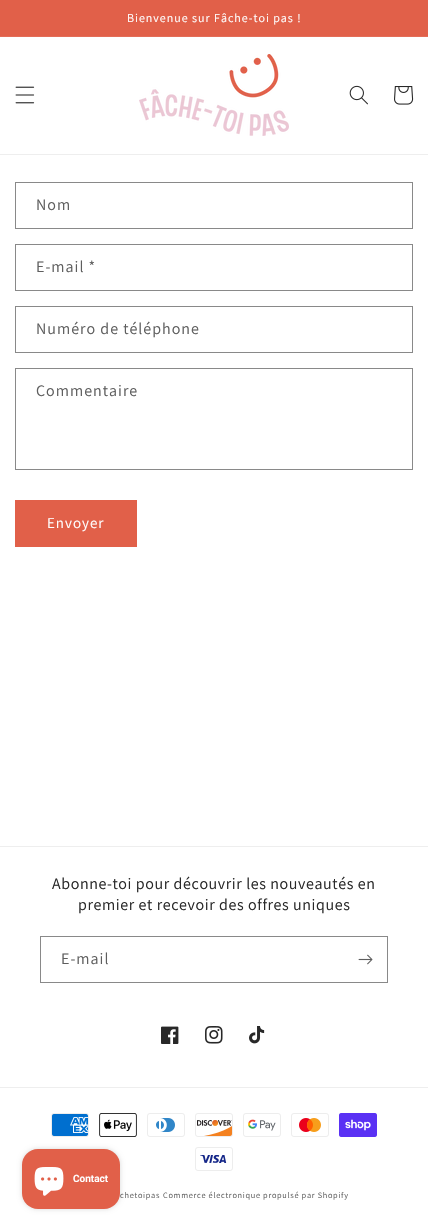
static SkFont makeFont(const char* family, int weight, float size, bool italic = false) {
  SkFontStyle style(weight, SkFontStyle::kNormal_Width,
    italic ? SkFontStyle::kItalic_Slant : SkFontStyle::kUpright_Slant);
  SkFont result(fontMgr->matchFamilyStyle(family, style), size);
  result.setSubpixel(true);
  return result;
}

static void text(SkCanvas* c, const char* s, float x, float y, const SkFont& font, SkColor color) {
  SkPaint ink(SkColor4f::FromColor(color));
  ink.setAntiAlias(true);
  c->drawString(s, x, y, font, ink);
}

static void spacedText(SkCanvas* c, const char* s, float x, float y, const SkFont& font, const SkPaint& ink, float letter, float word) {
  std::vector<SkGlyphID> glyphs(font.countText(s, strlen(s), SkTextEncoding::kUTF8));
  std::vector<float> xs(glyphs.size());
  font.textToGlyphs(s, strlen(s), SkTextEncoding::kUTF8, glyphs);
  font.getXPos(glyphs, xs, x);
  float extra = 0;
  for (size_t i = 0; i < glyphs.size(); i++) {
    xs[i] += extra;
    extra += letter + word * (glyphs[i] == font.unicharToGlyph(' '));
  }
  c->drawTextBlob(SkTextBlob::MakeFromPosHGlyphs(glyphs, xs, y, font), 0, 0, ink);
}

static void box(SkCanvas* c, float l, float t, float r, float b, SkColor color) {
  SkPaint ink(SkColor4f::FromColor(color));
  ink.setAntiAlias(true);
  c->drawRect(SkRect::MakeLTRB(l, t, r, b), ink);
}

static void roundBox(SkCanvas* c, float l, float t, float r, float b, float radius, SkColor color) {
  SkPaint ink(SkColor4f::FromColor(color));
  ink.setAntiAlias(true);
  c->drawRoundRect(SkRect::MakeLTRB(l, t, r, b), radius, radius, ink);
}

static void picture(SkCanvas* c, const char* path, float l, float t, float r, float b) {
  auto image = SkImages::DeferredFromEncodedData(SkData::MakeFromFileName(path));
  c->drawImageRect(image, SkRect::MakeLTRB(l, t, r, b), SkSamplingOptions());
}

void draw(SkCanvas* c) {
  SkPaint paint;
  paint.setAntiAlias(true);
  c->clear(0xffffffff);
  box(c, 0, 0, 428, 36, 0xffe16049);
  box(c, 0, 36, 428, 37, 0xffe36d58);
  SkFont face1 = makeFont("Assistant", 400, 12);
  paint.setColor(0xffffffff);
  spacedText(c, "Bienvenue sur Fâche-toi pas !", 127, 22, face1, paint, 1, 0);
  box(c, 0, 154, 428, 155, 0xffeeeeee);
  picture(c, "img_01.png", 15, 86, 35, 104);
  picture(c, "img_02.png", 139, 54, 289, 136);
  picture(c, "img_03.png", 349, 85, 368, 105);
  picture(c, "img_04.png", 394, 86, 414, 105);
  paint.setStyle(SkPaint::kStroke_Style);
  paint.setStrokeWidth(1);
  paint.setColor(0xff898989);
  c->drawRect(SkRect::MakeLTRB(15.5f, 182.5f, 412.5f, 228.5f), paint);
  SkFont face2 = makeFont("Assistant", 400, 16);
  paint.setStyle(SkPaint::kFill_Style);
  paint.setColor(0xff5e5e5e);
  spacedText(c, "Nom", 36, 210, face2, paint, 1, 0);
  paint.setStyle(SkPaint::kStroke_Style);
  paint.setColor(0xff898989);
  c->drawRect(SkRect::MakeLTRB(15.5f, 244.5f, 412.5f, 290.5f), paint);
  paint.setStyle(SkPaint::kFill_Style);
  paint.setColor(0xff5e5e5e);
  spacedText(c, "E-mail *", 36, 272, face2, paint, 1, 0);
  paint.setStyle(SkPaint::kStroke_Style);
  paint.setColor(0xff898989);
  c->drawRect(SkRect::MakeLTRB(15.5f, 306.5f, 412.5f, 352.5f), paint);
  paint.setStyle(SkPaint::kFill_Style);
  paint.setColor(0xff5e5e5e);
  spacedText(c, "Numéro de téléphone", 36, 334, face2, paint, 1, 0);
  paint.setStyle(SkPaint::kStroke_Style);
  paint.setColor(0xff898989);
  c->drawRect(SkRect::MakeLTRB(15.5f, 368.5f, 412.5f, 469.5f), paint);
  paint.setStyle(SkPaint::kFill_Style);
  paint.setColor(0xff5e5e5e);
  spacedText(c, "Commentaire", 36, 396, face2, paint, 1, 0);
  box(c, 15, 500, 137, 547, 0xffe16049);
  SkFont face3 = makeFont("Assistant", 400, 15);
  paint.setColor(0xffffffff);
  spacedText(c, "Envoyer", 47, 528, face3, paint, 1, 0);
  box(c, 0, 846, 428, 847, 0xffeeeeee);
  paint.setColor(0xff282828);
  spacedText(c, "Abonne-toi pour découvrir les nouveautés en", 52, 889, face2, paint, 0.6f, 0);
  spacedText(c, "premier et recevoir des offres uniques", 78, 910, face2, paint, 0.6f, 0);
  paint.setStyle(SkPaint::kStroke_Style);
  paint.setColor(0xff898989);
  c->drawRect(SkRect::MakeLTRB(40.5f, 936.5f, 387.5f, 982.5f), paint);
  paint.setStyle(SkPaint::kFill_Style);
  paint.setColor(0xff5e5e5e);
  spacedText(c, "E-mail", 61, 964, face2, paint, 1, 0);
  picture(c, "img_05.png", 358, 954, 373, 965);
  picture(c, "img_06.png", 161, 1026, 179, 1044);
  picture(c, "img_07.png", 205, 1026, 223, 1044);
  picture(c, "img_08.png", 249, 1026, 265, 1044);
  box(c, 0, 1087, 428, 1088, 0xffeeeeee);
  picture(c, "img_09.png", 51, 1113, 89, 1137);
  picture(c, "img_10.png", 99, 1113, 137, 1137);
  picture(c, "img_11.png", 147, 1113, 185, 1137);
  picture(c, "img_12.png", 195, 1113, 233, 1137);
  picture(c, "img_13.png", 243, 1113, 281, 1137);
  picture(c, "img_14.png", 291, 1113, 329, 1137);
  picture(c, "img_15.png", 339, 1113, 377, 1137);
  picture(c, "img_16.png", 195, 1147, 233, 1171);
  SkFont face4 = makeFont("Assistant", 400, 8.3f);
  spacedText(c, "chetoipas", 120, 1198, face4, paint, 0.7f, 0);
  spacedText(c, "Commerce électronique propulsé par Shopify", 163, 1198, face4, paint, 0.7f, 0);
  paint.setColor(0x26000000);
  paint.setMaskFilter(SkMaskFilter::MakeBlur(kNormal_SkBlurStyle, 2.5f));
  c->drawRoundRect(SkRect::MakeLTRB(22, 1149, 120, 1209), 16, 16, paint);
  paint.setMaskFilter(nullptr);
  roundBox(c, 22, 1149, 120, 1209, 16, 0xffe16049);
  picture(c, "img_17.png", 34, 1167, 64, 1196);
  SkFont face5 = makeFont("Roboto", 600, 10);
  text(c, "Contact", 73, 1182, face5, 0xffffffff);
}
